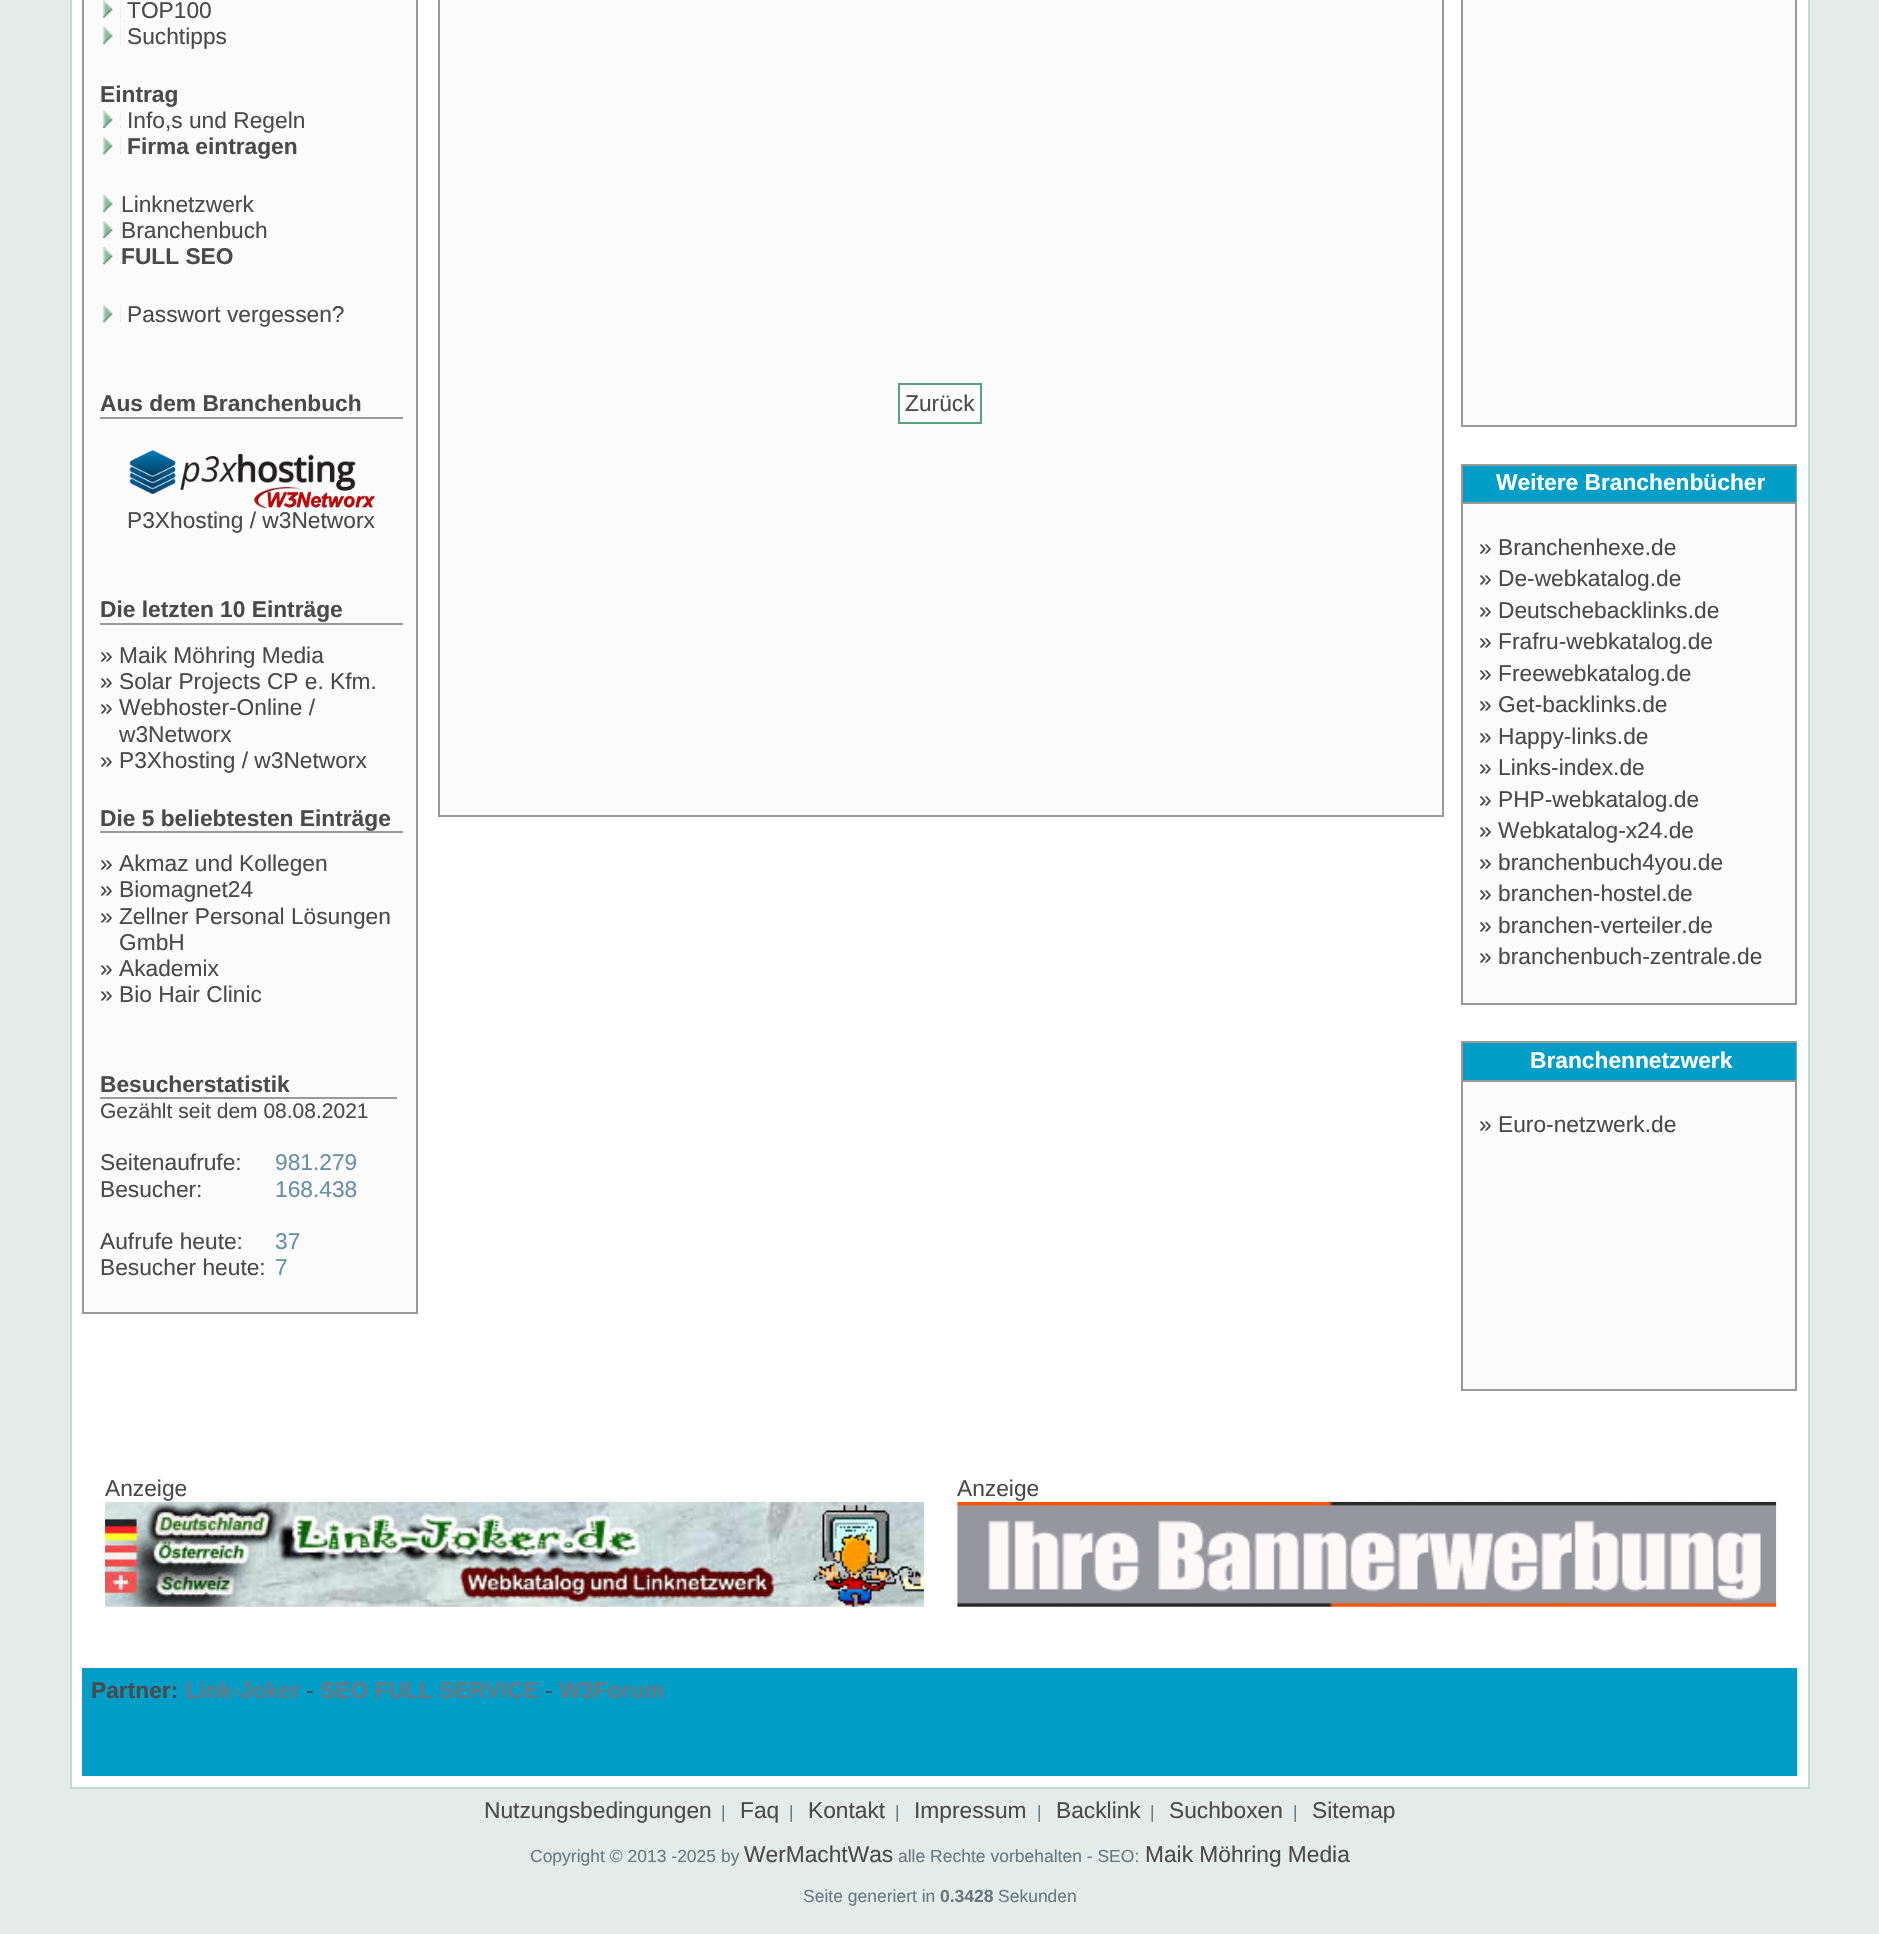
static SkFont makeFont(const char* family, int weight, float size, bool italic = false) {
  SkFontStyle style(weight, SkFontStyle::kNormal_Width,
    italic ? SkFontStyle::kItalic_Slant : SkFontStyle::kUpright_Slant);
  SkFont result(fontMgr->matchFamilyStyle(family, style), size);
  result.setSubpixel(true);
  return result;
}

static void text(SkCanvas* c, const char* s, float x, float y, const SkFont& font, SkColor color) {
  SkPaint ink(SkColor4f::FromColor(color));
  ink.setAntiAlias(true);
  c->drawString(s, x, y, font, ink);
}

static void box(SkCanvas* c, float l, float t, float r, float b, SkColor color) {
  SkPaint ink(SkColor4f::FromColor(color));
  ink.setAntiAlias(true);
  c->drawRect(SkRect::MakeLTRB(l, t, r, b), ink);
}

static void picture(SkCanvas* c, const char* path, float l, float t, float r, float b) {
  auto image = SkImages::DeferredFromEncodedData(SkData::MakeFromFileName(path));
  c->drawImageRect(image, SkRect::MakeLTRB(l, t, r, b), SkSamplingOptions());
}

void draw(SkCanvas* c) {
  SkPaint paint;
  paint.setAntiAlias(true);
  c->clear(0xffe3ece9);
  paint.setColor(0xffffffff);
  c->drawRect(SkRect::MakeLTRB(71, -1, 1809, 1788), paint);
  paint.setStyle(SkPaint::kStroke_Style);
  paint.setStrokeWidth(2);
  paint.setColor(0xffc1ded6);
  c->drawRect(SkRect::MakeLTRB(71, -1, 1809, 1788), paint);
  paint.setStyle(SkPaint::kFill_Style);
  paint.setColor(0xfffbfbfb);
  c->drawRect(SkRect::MakeLTRB(83, -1, 417, 1313), paint);
  paint.setStyle(SkPaint::kStroke_Style);
  paint.setColor(0xff999999);
  c->drawRect(SkRect::MakeLTRB(83, -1, 417, 1313), paint);
  picture(c, "img_01.png", 102, 0, 121, 18);
  SkFont face1 = makeFont("Liberation Sans", 400, 22.75f);
  text(c, "TOP100", 127, 18, face1, 0xff4a4a4a);
  picture(c, "img_02.png", 102, 26, 121, 44);
  text(c, "Suchtipps", 127, 44, face1, 0xff4a4a4a);
  SkFont face2 = makeFont("Liberation Sans", 700, 22.75f);
  text(c, "Eintrag", 100, 102, face2, 0xff4a4a4a);
  picture(c, "img_03.png", 102, 110, 121, 128);
  text(c, "Info,s und Regeln", 127, 128, face1, 0xff4a4a4a);
  picture(c, "img_04.png", 102, 137, 121, 155);
  text(c, "Firma eintragen", 127, 154, face2, 0xff4a4a4a);
  picture(c, "img_05.png", 102, 194, 121, 212);
  text(c, "Linknetzwerk", 121, 212, face1, 0xff4a4a4a);
  picture(c, "img_06.png", 102, 221, 121, 239);
  text(c, "Branchenbuch", 121, 238, face1, 0xff4a4a4a);
  picture(c, "img_07.png", 102, 247, 121, 265);
  text(c, "FULL SEO", 121, 264, face2, 0xff4a4a4a);
  picture(c, "img_08.png", 102, 305, 121, 323);
  text(c, "Passwort vergessen?", 127, 322, face1, 0xff4a4a4a);
  text(c, "Aus dem Branchenbuch", 100, 411, face2, 0xff4a4a4a);
  box(c, 100, 417, 403, 419, 0xff999999);
  picture(c, "img_09.png", 129, 450, 375, 508);
  text(c, "P3Xhosting / w3Networx", 127, 528, face1, 0xff4a4a4a);
  text(c, "Die letzten 10 Einträge", 100, 617, face2, 0xff4a4a4a);
  box(c, 100, 623, 403, 625, 0xff999999);
  text(c, "» Maik Möhring Media", 100, 663, face1, 0xff4a4a4a);
  text(c, "» Solar Projects CP e. Kfm.", 100, 689, face1, 0xff4a4a4a);
  text(c, "» Webhoster-Online /", 100, 715, face1, 0xff4a4a4a);
  text(c, "w3Networx", 119, 742, face1, 0xff4a4a4a);
  text(c, "» P3Xhosting / w3Networx", 100, 768, face1, 0xff4a4a4a);
  text(c, "Die 5 beliebtesten Einträge", 100, 826, face2, 0xff4a4a4a);
  box(c, 100, 831, 403, 833, 0xff999999);
  text(c, "» Akmaz und Kollegen", 100, 871, face1, 0xff4a4a4a);
  text(c, "» Biomagnet24", 100, 897, face1, 0xff4a4a4a);
  text(c, "» Zellner Personal Lösungen", 100, 924, face1, 0xff4a4a4a);
  text(c, "GmbH", 119, 950, face1, 0xff4a4a4a);
  text(c, "» Akademix", 100, 976, face1, 0xff4a4a4a);
  text(c, "» Bio Hair Clinic", 100, 1002, face1, 0xff4a4a4a);
  text(c, "Besucherstatistik", 100, 1092, face2, 0xff4a4a4a);
  box(c, 100, 1097, 397, 1099, 0xff999999);
  SkFont face3 = makeFont("Liberation Sans", 400, 21);
  text(c, "Gezählt seit dem 08.08.2021", 100, 1118, face3, 0xff4a4a4a);
  text(c, "Seitenaufrufe:", 100, 1170, face1, 0xff4a4a4a);
  text(c, "Besucher:", 100, 1197, face1, 0xff4a4a4a);
  text(c, "Aufrufe heute:", 100, 1249, face1, 0xff4a4a4a);
  text(c, "Besucher heute:", 100, 1275, face1, 0xff4a4a4a);
  text(c, "981.279", 275, 1170, face1, 0xff688ea8);
  text(c, "168.438", 275, 1197, face1, 0xff688ea8);
  text(c, "37", 275, 1249, face1, 0xff688ea8);
  text(c, "7", 275, 1275, face1, 0xff688ea8);
  paint.setStyle(SkPaint::kFill_Style);
  paint.setColor(0xfffcfcfc);
  c->drawRect(SkRect::MakeLTRB(439, -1, 1443, 816), paint);
  paint.setStyle(SkPaint::kStroke_Style);
  paint.setColor(0xff999999);
  c->drawRect(SkRect::MakeLTRB(439, -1, 1443, 816), paint);
  paint.setColor(0xff5aa27f);
  c->drawRect(SkRect::MakeLTRB(899, 384, 981, 423), paint);
  text(c, "Zurück", 905, 411, face1, 0xff4a4a4a);
  paint.setStyle(SkPaint::kFill_Style);
  paint.setColor(0xfffbfbfb);
  c->drawRect(SkRect::MakeLTRB(1462, -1, 1796, 426), paint);
  paint.setStyle(SkPaint::kStroke_Style);
  paint.setColor(0xff999999);
  c->drawRect(SkRect::MakeLTRB(1462, -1, 1796, 426), paint);
  box(c, 1463, 504, 1795, 1003, 0xfffbfbfb);
  c->drawRect(SkRect::MakeLTRB(1462, 465, 1796, 1004), paint);
  box(c, 1463, 466, 1796, 502, 0xff009ec6);
  box(c, 1463, 502, 1796, 504, 0xff999999);
  text(c, "Weitere Branchenbücher", 1496, 490, face2, 0xffffffff);
  text(c, "»", 1479, 555, face1, 0xff4a4a4a);
  text(c, "Branchenhexe.de", 1498, 555, face1, 0xff4a4a4a);
  text(c, "»", 1479, 586, face1, 0xff4a4a4a);
  text(c, "De-webkatalog.de", 1498, 586, face1, 0xff4a4a4a);
  text(c, "»", 1479, 618, face1, 0xff4a4a4a);
  text(c, "Deutschebacklinks.de", 1498, 618, face1, 0xff4a4a4a);
  text(c, "»", 1479, 649, face1, 0xff4a4a4a);
  text(c, "Frafru-webkatalog.de", 1498, 649, face1, 0xff4a4a4a);
  text(c, "»", 1479, 681, face1, 0xff4a4a4a);
  text(c, "Freewebkatalog.de", 1498, 681, face1, 0xff4a4a4a);
  text(c, "»", 1479, 712, face1, 0xff4a4a4a);
  text(c, "Get-backlinks.de", 1498, 712, face1, 0xff4a4a4a);
  text(c, "»", 1479, 744, face1, 0xff4a4a4a);
  text(c, "Happy-links.de", 1498, 744, face1, 0xff4a4a4a);
  text(c, "»", 1479, 775, face1, 0xff4a4a4a);
  text(c, "Links-index.de", 1498, 775, face1, 0xff4a4a4a);
  text(c, "»", 1479, 807, face1, 0xff4a4a4a);
  text(c, "PHP-webkatalog.de", 1498, 807, face1, 0xff4a4a4a);
  text(c, "»", 1479, 838, face1, 0xff4a4a4a);
  text(c, "Webkatalog-x24.de", 1498, 838, face1, 0xff4a4a4a);
  text(c, "»", 1479, 870, face1, 0xff4a4a4a);
  text(c, "branchenbuch4you.de", 1498, 870, face1, 0xff4a4a4a);
  text(c, "»", 1479, 901, face1, 0xff4a4a4a);
  text(c, "branchen-hostel.de", 1498, 901, face1, 0xff4a4a4a);
  text(c, "»", 1479, 933, face1, 0xff4a4a4a);
  text(c, "branchen-verteiler.de", 1498, 933, face1, 0xff4a4a4a);
  text(c, "»", 1479, 964, face1, 0xff4a4a4a);
  text(c, "branchenbuch-zentrale.de", 1498, 964, face1, 0xff4a4a4a);
  box(c, 1463, 1082, 1795, 1389, 0xfffbfbfb);
  c->drawRect(SkRect::MakeLTRB(1462, 1042, 1796, 1390), paint);
  box(c, 1463, 1043, 1796, 1080, 0xff009ec6);
  box(c, 1463, 1080, 1796, 1082, 0xff999999);
  text(c, "Branchennetzwerk", 1530, 1068, face2, 0xffffffff);
  text(c, "»", 1479, 1132, face1, 0xff4a4a4a);
  text(c, "Euro-netzwerk.de", 1498, 1132, face1, 0xff4a4a4a);
  text(c, "Anzeige", 105, 1496, face1, 0xff4a4a4a);
  picture(c, "img_10.png", 105, 1501, 924, 1607);
  text(c, "Anzeige", 957, 1496, face1, 0xff4a4a4a);
  picture(c, "img_11.png", 957, 1501, 1777, 1607);
  box(c, 82, 1668, 1797, 1776, 0xff009ec6);
  text(c, "Partner:", 91, 1698, face2, 0xff4a4a4a);
  text(c, "Link-Joker", 185, 1698, face2, 0xff687883);
  text(c, "-", 306, 1698, face1, 0xff4a4a4a);
  text(c, "SEO FULL SERVICE", 320, 1698, face2, 0xff687883);
  text(c, "-", 545, 1698, face1, 0xff4a4a4a);
  text(c, "W3Forum", 559, 1698, face2, 0xff687883);
  text(c, "Nutzungsbedingungen", 484, 1818, face1, 0xff4a4a4a);
  SkFont face4 = makeFont("Liberation Sans", 400, 17.5f);
  text(c, "|", 721, 1818, face4, 0xff687883);
  text(c, "Faq", 740, 1818, face1, 0xff4a4a4a);
  text(c, "|", 789, 1818, face4, 0xff687883);
  text(c, "Kontakt", 808, 1818, face1, 0xff4a4a4a);
  text(c, "|", 895, 1818, face4, 0xff687883);
  text(c, "Impressum", 914, 1818, face1, 0xff4a4a4a);
  text(c, "|", 1037, 1818, face4, 0xff687883);
  text(c, "Backlink", 1056, 1818, face1, 0xff4a4a4a);
  text(c, "|", 1150, 1818, face4, 0xff687883);
  text(c, "Suchboxen", 1169, 1818, face1, 0xff4a4a4a);
  text(c, "|", 1293, 1818, face4, 0xff687883);
  text(c, "Sitemap", 1312, 1818, face1, 0xff4a4a4a);
  text(c, "Copyright © 2013 -2025 by", 530, 1862, face4, 0xff687883);
  text(c, "WerMachtWas", 744, 1862, face1, 0xff4a4a4a);
  text(c, "alle Rechte vorbehalten - SEO:", 898, 1862, face4, 0xff687883);
  text(c, "Maik Möhring Media", 1145, 1862, face1, 0xff4a4a4a);
  text(c, "Seite generiert in", 803, 1902, face4, 0xff687883);
  SkFont face5 = makeFont("Liberation Sans", 700, 17.5f);
  text(c, "0.3428", 940, 1902, face5, 0xff687883);
  text(c, "Sekunden", 998, 1902, face4, 0xff687883);
}
